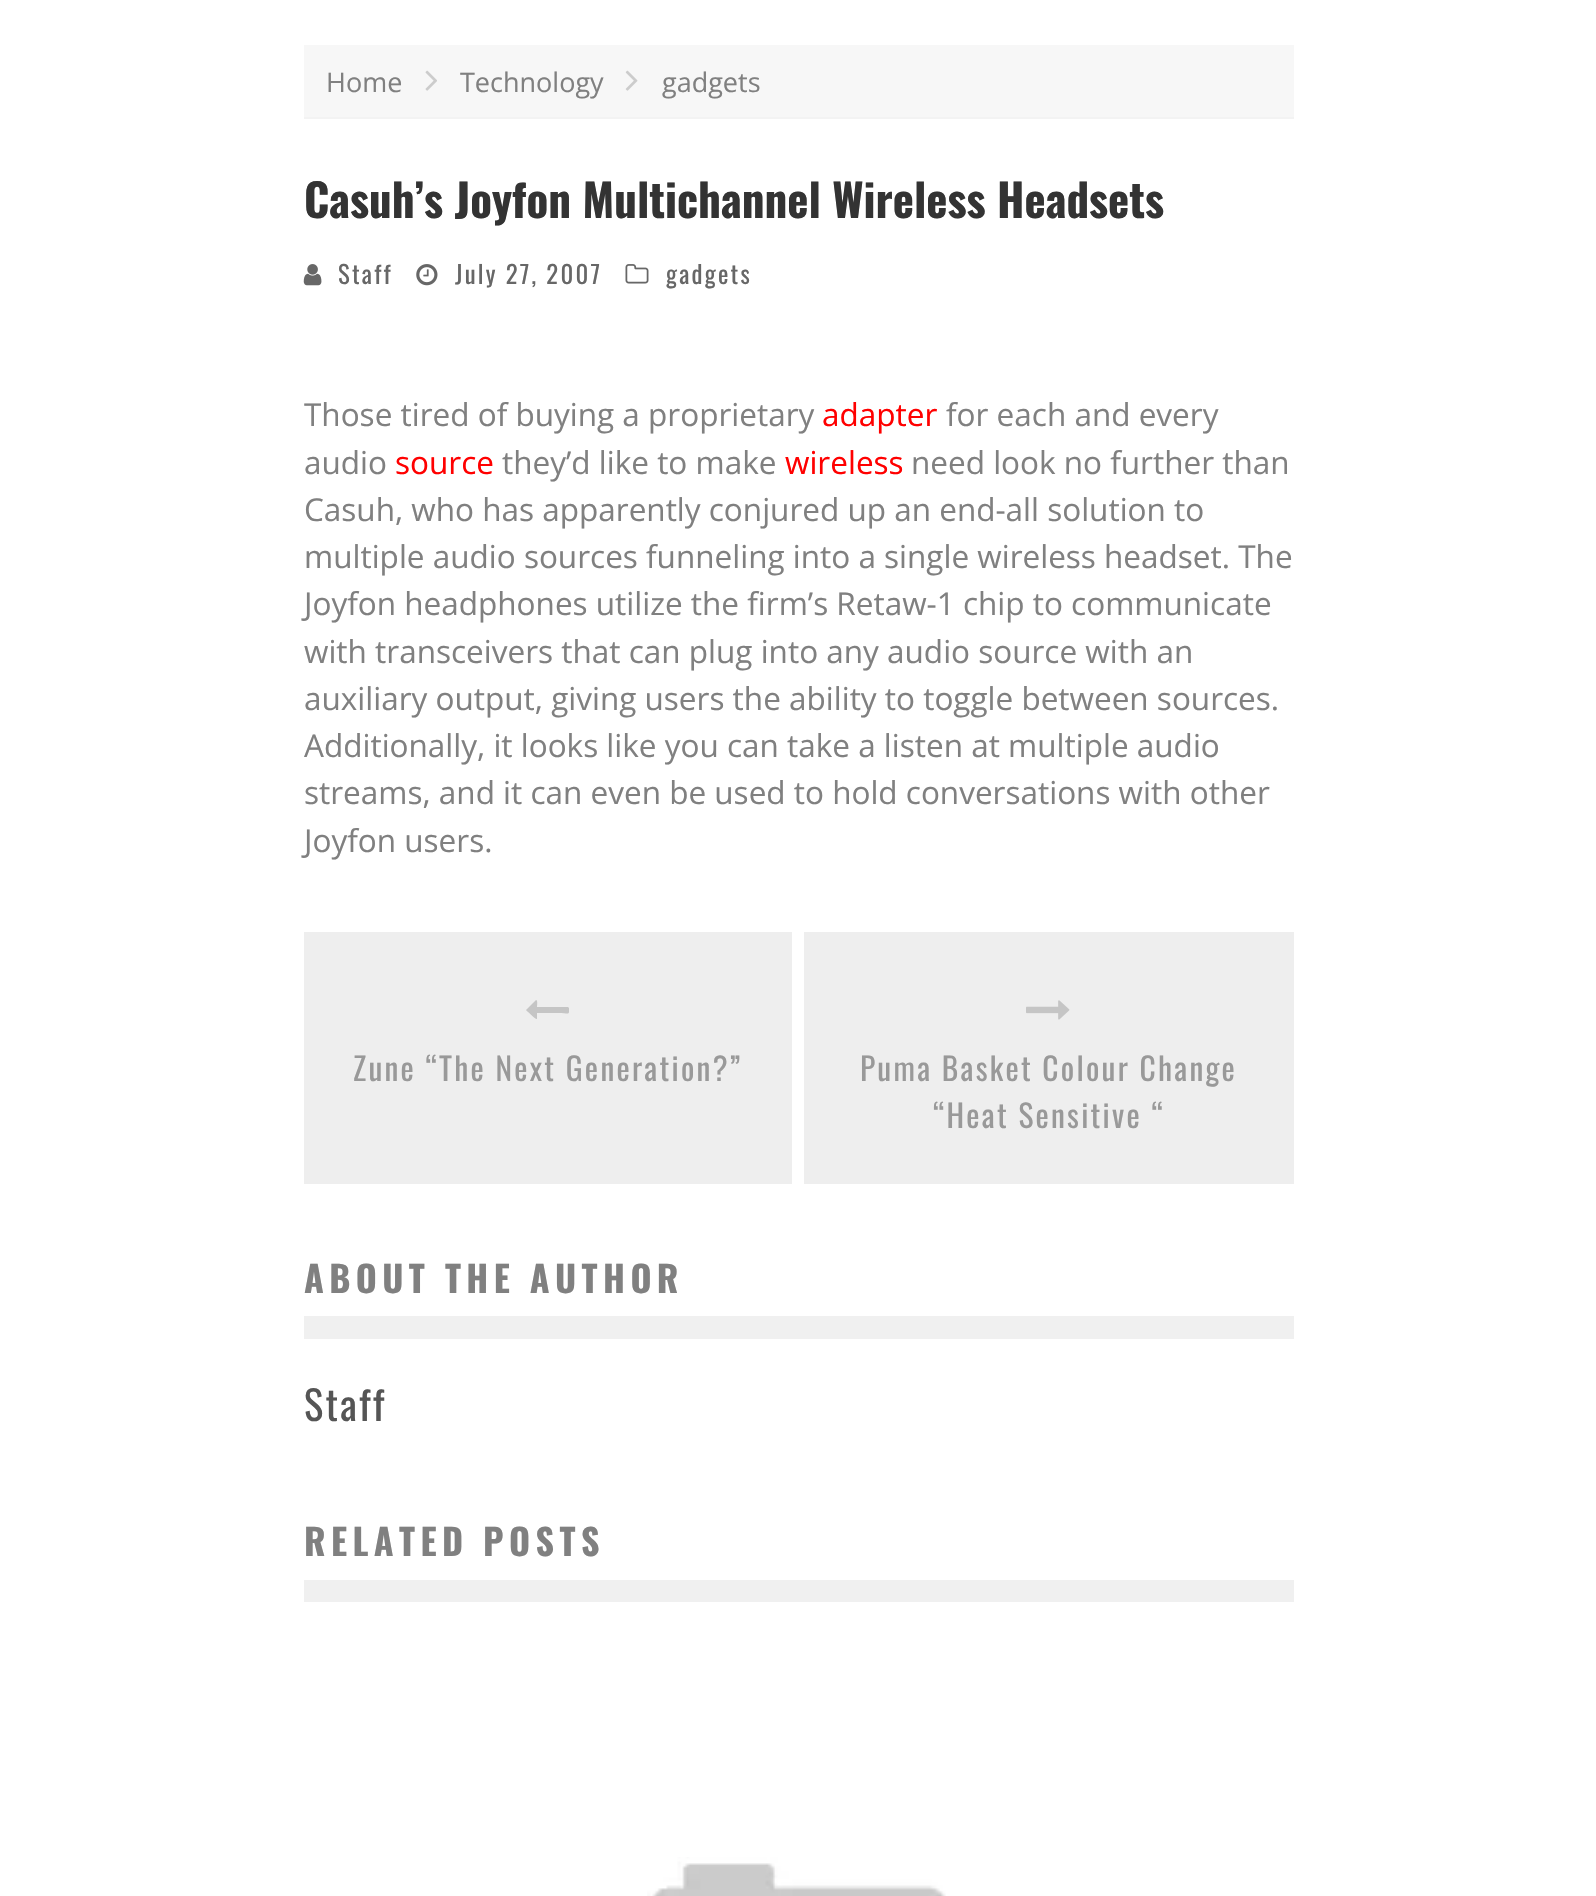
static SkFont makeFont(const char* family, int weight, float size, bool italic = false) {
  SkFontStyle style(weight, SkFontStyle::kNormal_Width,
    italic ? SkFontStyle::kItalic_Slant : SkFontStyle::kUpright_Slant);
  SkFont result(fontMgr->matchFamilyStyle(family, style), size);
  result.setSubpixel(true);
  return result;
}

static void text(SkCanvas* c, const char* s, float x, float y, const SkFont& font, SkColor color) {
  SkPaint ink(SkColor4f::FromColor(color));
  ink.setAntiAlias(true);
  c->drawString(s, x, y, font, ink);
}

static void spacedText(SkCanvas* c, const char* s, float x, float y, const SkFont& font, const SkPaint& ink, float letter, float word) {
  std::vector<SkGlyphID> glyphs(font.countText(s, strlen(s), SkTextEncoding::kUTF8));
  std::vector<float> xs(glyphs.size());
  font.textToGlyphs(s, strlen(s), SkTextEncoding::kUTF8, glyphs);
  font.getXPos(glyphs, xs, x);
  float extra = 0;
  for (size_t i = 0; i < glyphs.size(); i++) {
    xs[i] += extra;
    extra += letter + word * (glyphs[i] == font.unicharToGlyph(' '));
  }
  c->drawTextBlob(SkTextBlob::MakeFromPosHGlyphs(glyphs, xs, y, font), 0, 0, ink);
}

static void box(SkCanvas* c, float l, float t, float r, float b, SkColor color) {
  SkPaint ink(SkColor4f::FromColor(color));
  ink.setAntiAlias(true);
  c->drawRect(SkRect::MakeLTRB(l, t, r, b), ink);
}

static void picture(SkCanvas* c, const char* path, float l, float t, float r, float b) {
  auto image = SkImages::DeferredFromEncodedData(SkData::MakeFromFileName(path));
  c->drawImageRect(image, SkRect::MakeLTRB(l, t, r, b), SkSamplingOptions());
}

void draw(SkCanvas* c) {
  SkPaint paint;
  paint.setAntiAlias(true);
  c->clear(0xffffffff);
  box(c, 304, 45, 1294, 117, 0xfff7f7f7);
  box(c, 304, 117, 1294, 119, 0xfff3f3f3);
  SkFont face1 = makeFont("Open Sans", 400, 27);
  text(c, "Home", 326, 92, face1, 0xff808080);
  picture(c, "img_01.png", 425, 70, 437, 91);
  text(c, "Technology", 460, 92, face1, 0xff808080);
  picture(c, "img_02.png", 625, 70, 638, 91);
  text(c, "gadgets", 662, 92, face1, 0xff808080);
  SkFont face2 = makeFont("Oswald", 700, 45);
  text(c, "Casuh’s Joyfon Multichannel Wireless Headsets", 304, 218, face2, 0xff333333);
  picture(c, "img_03.png", 303, 264, 322, 286);
  SkFont face3 = makeFont("Oswald", 400, 24.75f);
  paint.setColor(0xff676767);
  spacedText(c, "Staff", 338, 284, face3, paint, 2.25f, 0);
  picture(c, "img_04.png", 416, 264, 438, 286);
  spacedText(c, "July 27, 2007", 455, 284, face3, paint, 2.25f, 0);
  picture(c, "img_05.png", 625, 264, 649, 284);
  spacedText(c, "gadgets", 666, 284, face3, paint, 2.25f, 0);
  SkFont face4 = makeFont("Open Sans", 400, 31.5f);
  text(c, "Those tired of buying a proprietary", 304, 426, face4, 0xff808080);
  text(c, "adapter", 822, 426, face4, 0xffff0000);
  text(c, "for each and every", 946, 426, face4, 0xff808080);
  text(c, "audio", 304, 474, face4, 0xff808080);
  text(c, "source", 395, 474, face4, 0xffff0000);
  text(c, "they’d like to make", 502, 474, face4, 0xff808080);
  text(c, "wireless", 785, 474, face4, 0xffff0000);
  text(c, "need look no further than", 911, 474, face4, 0xff808080);
  text(c, "Casuh, who has apparently conjured up an end-all solution to", 304, 521, face4, 0xff808080);
  text(c, "multiple audio sources funneling into a single wireless headset. The", 304, 568, face4, 0xff808080);
  text(c, "Joyfon headphones utilize the firm’s Retaw-1 chip to communicate", 304, 615, face4, 0xff808080);
  text(c, "with transceivers that can plug into any audio source with an", 304, 663, face4, 0xff808080);
  text(c, "auxiliary output, giving users the ability to toggle between sources.", 304, 710, face4, 0xff808080);
  text(c, "Additionally, it looks like you can take a listen at multiple audio", 304, 757, face4, 0xff808080);
  text(c, "streams, and it can even be used to hold conversations with other", 304, 804, face4, 0xff808080);
  text(c, "Joyfon users.", 304, 852, face4, 0xff808080);
  box(c, 304, 932, 1294, 1184, 0xffeeeeee);
  box(c, 792, 932, 804, 1184, 0xffffffff);
  paint.setColor(0xffc5c5c5);
  c->drawPath(SkPathBuilder().moveTo(569, 1008).cubicTo(569, 1016, 570, 1013, 558, 1013).lineTo(537, 1013).lineTo(537, 1019).cubicTo(536, 1020, 526, 1010, 526, 1010).lineTo(536, 1000).cubicTo(538, 1000, 537, 1006, 537, 1007).lineTo(568, 1007).close().detach(), paint);
  SkFont face5 = makeFont("Oswald", 400, 31.5f);
  paint.setColor(0xff999999);
  spacedText(c, "Zune “The Next Generation?”", 353, 1081, face5, paint, 2.25f, 0);
  picture(c, "img_06.png", 1026, 1000, 1070, 1020);
  spacedText(c, "Puma Basket Colour Change", 860, 1081, face5, paint, 2.25f, 0);
  spacedText(c, "“Heat Sensitive “", 933, 1128, face5, paint, 2.25f, 0);
  box(c, 304, 1316, 1294, 1339, 0xfff0f0f0);
  SkFont face6 = makeFont("Oswald", 700, 36);
  paint.setColor(0xff808080);
  spacedText(c, "ABOUT THE AUTHOR", 304, 1293, face6, paint, 5.4f, 0);
  SkFont face7 = makeFont("Oswald", 400, 40.5f);
  paint.setColor(0xff555555);
  spacedText(c, "Staff", 304, 1421, face7, paint, 2.25f, 0);
  box(c, 304, 1580, 1294, 1602, 0xfff0f0f0);
  paint.setColor(0xff808080);
  spacedText(c, "RELATED POSTS", 304, 1556, face6, paint, 5.4f, 0);
  picture(c, "img_07.png", 647, 1857, 946, 1896);
}
